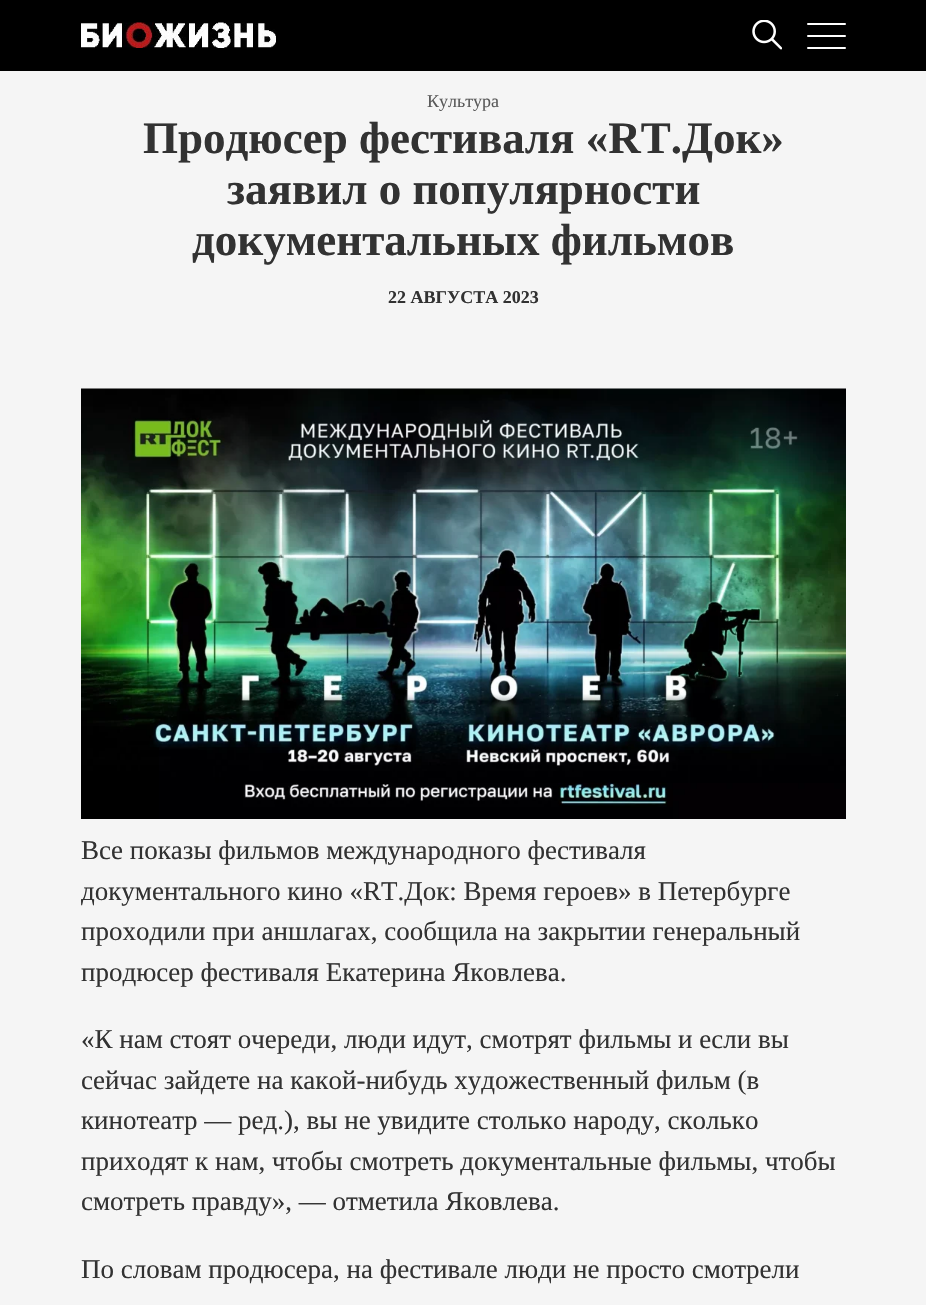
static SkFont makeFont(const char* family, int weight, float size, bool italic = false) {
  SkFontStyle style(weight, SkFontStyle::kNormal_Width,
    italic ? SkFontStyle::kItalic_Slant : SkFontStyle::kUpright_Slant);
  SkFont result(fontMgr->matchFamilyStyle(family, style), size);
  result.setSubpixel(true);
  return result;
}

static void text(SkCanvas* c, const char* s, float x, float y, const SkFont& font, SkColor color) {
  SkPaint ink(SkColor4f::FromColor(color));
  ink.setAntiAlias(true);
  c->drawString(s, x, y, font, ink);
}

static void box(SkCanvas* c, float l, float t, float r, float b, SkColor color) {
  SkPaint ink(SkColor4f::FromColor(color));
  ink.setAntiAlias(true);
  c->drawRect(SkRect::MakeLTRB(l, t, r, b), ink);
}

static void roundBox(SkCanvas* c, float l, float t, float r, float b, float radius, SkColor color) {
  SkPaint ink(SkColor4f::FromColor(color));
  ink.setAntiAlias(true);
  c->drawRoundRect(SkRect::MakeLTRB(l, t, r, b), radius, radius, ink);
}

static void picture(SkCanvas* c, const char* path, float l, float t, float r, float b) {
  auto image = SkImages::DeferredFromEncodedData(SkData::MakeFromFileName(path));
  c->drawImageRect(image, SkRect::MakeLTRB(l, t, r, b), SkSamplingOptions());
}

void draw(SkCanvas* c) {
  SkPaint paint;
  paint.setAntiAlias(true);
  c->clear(0xfff5f5f5);
  box(c, 0, 0, 926, 71, 0xff000000);
  picture(c, "img_01.png", 81, 22, 276, 48);
  picture(c, "img_02.png", 752, 20, 782, 50);
  roundBox(c, 807, 35, 846, 37, 1, 0xffffffff);
  roundBox(c, 807, 23, 846, 25, 1, 0xffffffff);
  roundBox(c, 807, 47, 846, 49, 1, 0xffffffff);
  SkFont face1 = makeFont("Liberation Serif", 400, 18);
  text(c, "Культура", 427, 107, face1, 0xff595959);
  SkFont face2 = makeFont("Liberation Serif", 700, 45);
  text(c, "Продюсер фестиваля «RT.Док»", 143, 153, face2, 0xff323232);
  text(c, "заявил о популярности", 227, 204, face2, 0xff323232);
  text(c, "документальных фильмов", 192, 255, face2, 0xff323232);
  SkFont face3 = makeFont("Liberation Serif", 700, 18);
  text(c, "22 АВГУСТА 2023", 388, 303, face3, 0xff323232);
  picture(c, "img_03.png", 81, 388, 846, 819);
  SkFont face4 = makeFont("Liberation Serif", 400, 27);
  text(c, "Все показы фильмов международного фестиваля", 81, 859, face4, 0xff323232);
  text(c, "документального кино «RT.Док: Время героев» в Петербурге", 81, 900, face4, 0xff323232);
  text(c, "проходили при аншлагах, сообщила на закрытии генеральный", 81, 940, face4, 0xff323232);
  text(c, "продюсер фестиваля Екатерина Яковлева.", 81, 981, face4, 0xff323232);
  text(c, "«К нам стоят очереди, люди идут, смотрят фильмы и если вы", 81, 1048, face4, 0xff323232);
  text(c, "сейчас зайдете на какой-нибудь художественный фильм (в", 81, 1089, face4, 0xff323232);
  text(c, "кинотеатр — ред.), вы не увидите столько народу, сколько", 81, 1129, face4, 0xff323232);
  text(c, "приходят к нам, чтобы смотреть документальные фильмы, чтобы", 81, 1170, face4, 0xff323232);
  text(c, "смотреть правду», — отметила Яковлева.", 81, 1210, face4, 0xff323232);
  text(c, "По словам продюсера, на фестивале люди не просто смотрели", 81, 1278, face4, 0xff323232);
}
